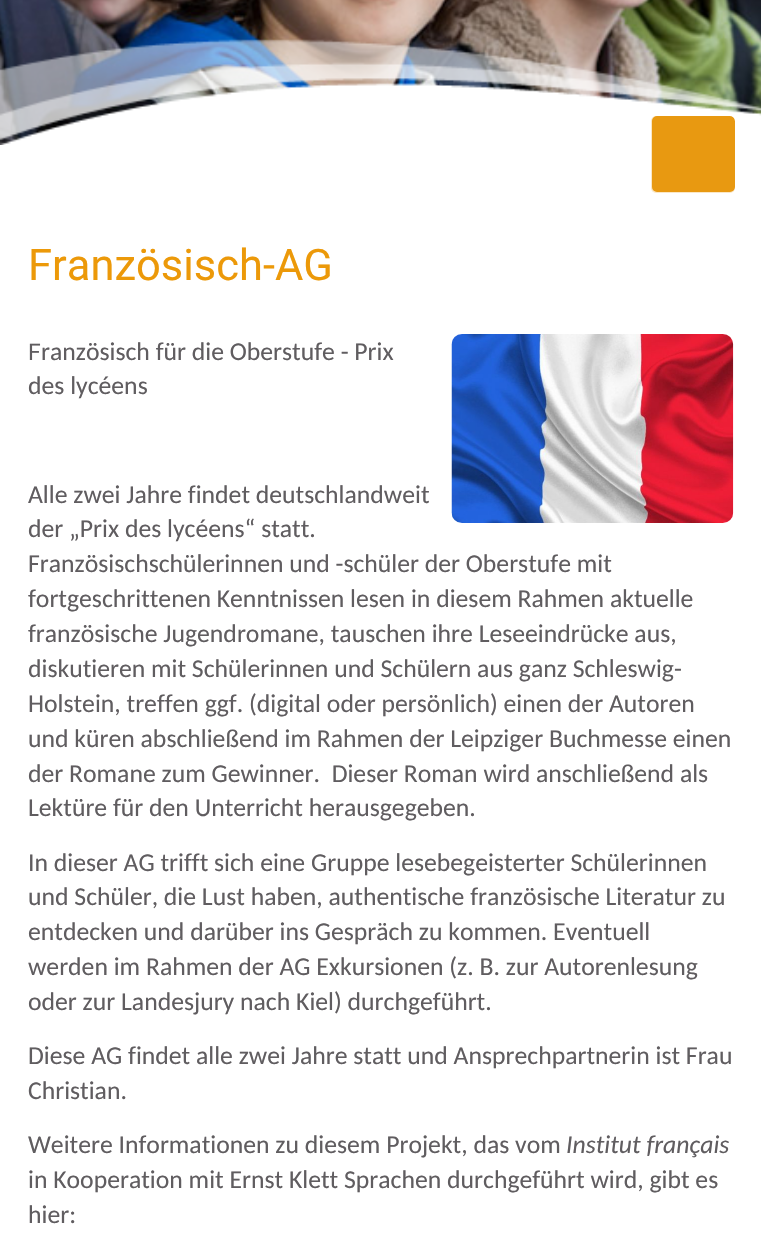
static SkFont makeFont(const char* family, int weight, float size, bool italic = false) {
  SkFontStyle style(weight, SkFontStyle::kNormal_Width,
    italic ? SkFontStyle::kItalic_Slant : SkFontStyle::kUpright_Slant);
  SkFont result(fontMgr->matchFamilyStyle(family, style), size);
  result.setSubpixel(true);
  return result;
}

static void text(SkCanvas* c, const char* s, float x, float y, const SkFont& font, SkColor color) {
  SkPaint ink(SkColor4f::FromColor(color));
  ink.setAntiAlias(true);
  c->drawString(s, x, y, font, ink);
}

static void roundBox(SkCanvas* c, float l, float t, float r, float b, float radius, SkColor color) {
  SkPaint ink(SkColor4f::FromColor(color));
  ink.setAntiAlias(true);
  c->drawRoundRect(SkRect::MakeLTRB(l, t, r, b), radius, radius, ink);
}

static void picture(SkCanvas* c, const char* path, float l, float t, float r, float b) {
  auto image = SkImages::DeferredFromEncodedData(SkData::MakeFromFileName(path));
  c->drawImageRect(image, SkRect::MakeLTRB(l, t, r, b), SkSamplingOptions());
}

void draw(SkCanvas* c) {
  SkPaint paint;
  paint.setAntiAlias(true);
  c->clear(0xffffffff);
  picture(c, "img_01.png", 0, 0, 761, 145);
  picture(c, "img_02.png", 0, 39, 761, 145);
  roundBox(c, 651, 116, 735, 193, 5, 0xffe89911);
  paint.setStyle(SkPaint::kStroke_Style);
  paint.setStrokeWidth(4);
  paint.setColor(0xc2ffffff);
  c->drawRoundRect(SkRect::MakeLTRB(650, 114, 737, 194), 7, 7, paint);
  SkFont face1 = makeFont("Roboto", 400, 43.5f);
  text(c, "Französisch-AG", 28, 280, face1, 0xffec9909);
  SkFont face2 = makeFont("Roboto", 400, 23);
  text(c, "F", 28, 360, face2, 0xff605d60);
  SkFont face3 = makeFont("Carlito", 400, 25.7f);
  text(c, "ranzösisch für die Oberstufe - Prix", 41, 360, face3, 0xff605d60);
  text(c, "des lycéens", 28, 394, face3, 0xff605d60);
  picture(c, "img_03.png", 451, 334, 734, 523);
  text(c, "Alle zwei Jahre findet deutschlandweit", 28, 503, face3, 0xff605d60);
  text(c, "der „Prix des lycéens“ statt.", 28, 537, face3, 0xff605d60);
  text(c, "Französischschülerinnen und -schüler der Oberstufe mit", 28, 572, face3, 0xff605d60);
  text(c, "fortgeschrittenen Kenntnissen lesen in diesem Rahmen aktuelle", 28, 607, face3, 0xff605d60);
  text(c, "französische Jugendromane, tauschen ihre Leseeindrücke aus,", 28, 642, face3, 0xff605d60);
  text(c, "diskutieren mit Schülerinnen und Schülern aus ganz Schleswig-", 28, 677, face3, 0xff605d60);
  text(c, "Holstein, treffen ggf. (digital oder persönlich) einen der Autoren", 28, 712, face3, 0xff605d60);
  text(c, "und küren abschließend im Rahmen der Leipziger Buchmesse einen", 28, 747, face3, 0xff605d60);
  text(c, "der Romane zum Gewinner.  Dieser Roman wird anschließend als", 28, 782, face3, 0xff605d60);
  text(c, "Lektüre für den Unterricht herausgegeben.", 28, 816, face3, 0xff605d60);
  text(c, "In dieser AG trifft sich eine Gruppe lesebegeisterter Schülerinnen", 28, 871, face3, 0xff605d60);
  text(c, "und Schüler, die Lust haben, authentische französische Literatur zu", 28, 905, face3, 0xff605d60);
  text(c, "entdecken und darüber ins Gespräch zu kommen. Eventuell", 28, 940, face3, 0xff605d60);
  text(c, "werden im Rahmen der AG Exkursionen (z. B. zur Autorenlesung", 28, 975, face3, 0xff605d60);
  text(c, "oder zur Landesjury nach Kiel) durchgeführt.", 28, 1010, face3, 0xff605d60);
  text(c, "Diese AG findet alle zwei Jahre statt und Ansprechpartnerin ist Frau", 28, 1064, face3, 0xff605d60);
  text(c, "Christian.", 28, 1099, face3, 0xff605d60);
  text(c, "Weitere Informationen zu diesem Projekt, das vom", 28, 1153, face3, 0xff605d60);
  SkFont face4 = makeFont("Carlito", 400, 25.7f, true);
  text(c, "Institut français", 566, 1153, face4, 0xff605d60);
  text(c, "in Kooperation mit Ernst Klett Sprachen durchgeführt wird, gibt es", 28, 1188, face3, 0xff605d60);
  text(c, "hier:", 28, 1223, face3, 0xff605d60);
}
